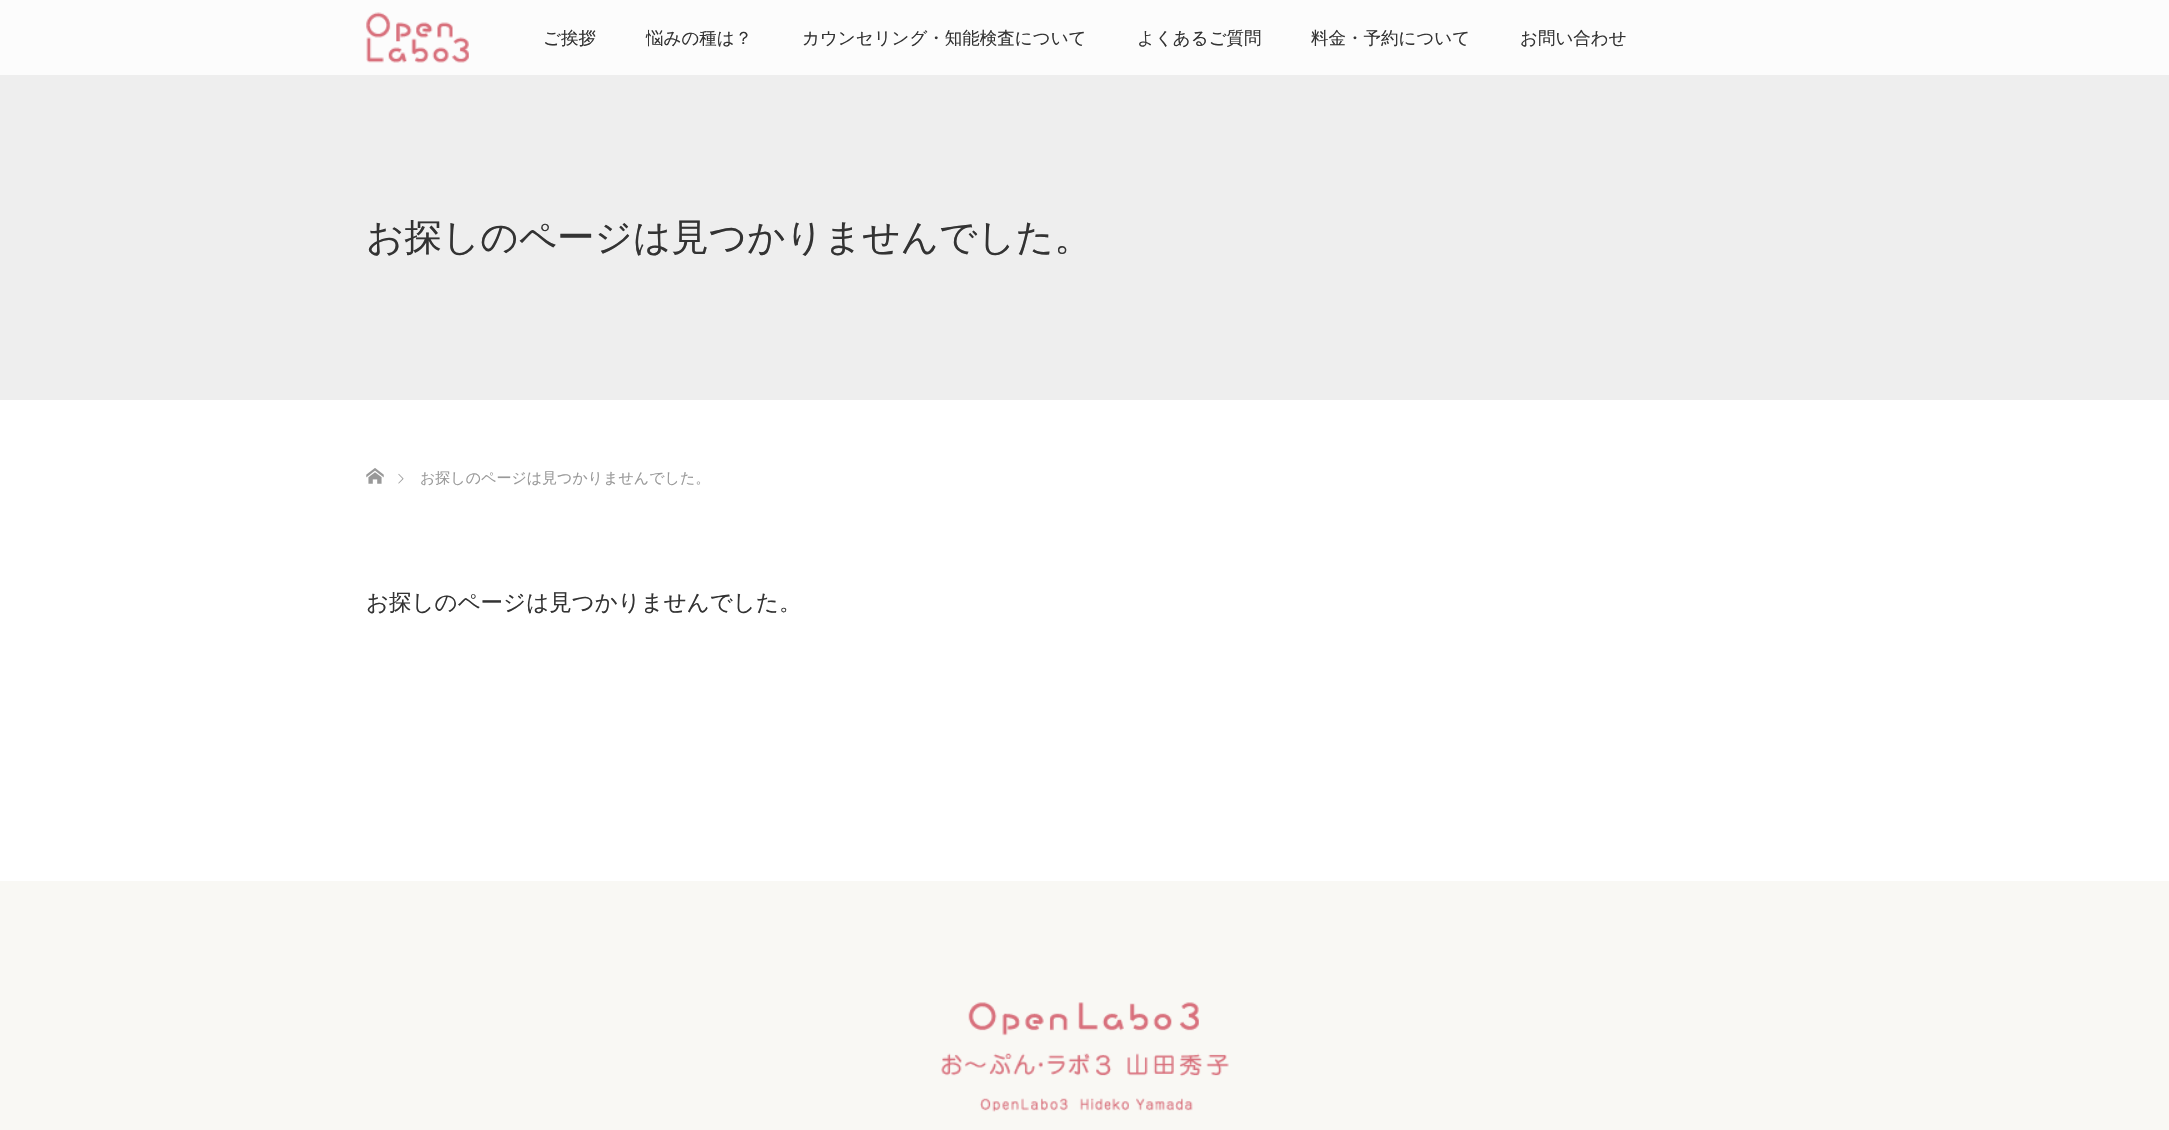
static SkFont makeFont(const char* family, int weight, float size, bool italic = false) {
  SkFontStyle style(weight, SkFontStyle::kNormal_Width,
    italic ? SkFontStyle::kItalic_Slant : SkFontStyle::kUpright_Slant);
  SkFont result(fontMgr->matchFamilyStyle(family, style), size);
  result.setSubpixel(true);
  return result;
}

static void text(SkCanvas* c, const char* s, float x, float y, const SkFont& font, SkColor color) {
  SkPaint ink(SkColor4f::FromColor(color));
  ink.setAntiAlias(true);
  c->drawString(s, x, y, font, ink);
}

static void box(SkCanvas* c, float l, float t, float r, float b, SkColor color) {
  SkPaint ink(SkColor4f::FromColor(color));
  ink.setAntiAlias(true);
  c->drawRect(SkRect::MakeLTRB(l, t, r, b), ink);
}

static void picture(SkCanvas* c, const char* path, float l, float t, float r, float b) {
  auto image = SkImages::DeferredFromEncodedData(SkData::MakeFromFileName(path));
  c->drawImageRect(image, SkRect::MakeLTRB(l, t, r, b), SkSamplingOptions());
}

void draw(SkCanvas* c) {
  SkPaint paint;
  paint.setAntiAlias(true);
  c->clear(0xffffffff);
  box(c, 0, 0, 2169, 75, 0xfffcfcfc);
  picture(c, "img_01.png", 366, 12, 469, 63);
  SkFont face1 = makeFont("WenQuanYi Zen Hei", 500, 17.5f);
  text(c, "ご挨拶", 543, 44, face1, 0xff333333);
  text(c, "悩みの種は？", 646, 44, face1, 0xff333333);
  text(c, "カウンセリング・知能検査について", 802, 44, face1, 0xff333333);
  text(c, "よくあるご質問", 1137, 44, face1, 0xff333333);
  text(c, "料金・予約について", 1311, 44, face1, 0xff333333);
  text(c, "お問い合わせ", 1520, 44, face1, 0xff333333);
  box(c, 0, 75, 2169, 400, 0xffeeeeee);
  SkFont face2 = makeFont("WenQuanYi Zen Hei", 500, 37.5f);
  text(c, "お探しのページは見つかりませんでした。", 366, 250, face2, 0xff333333);
  picture(c, "img_02.png", 366, 468, 384, 484);
  picture(c, "img_03.png", 398, 473, 404, 484);
  SkFont face3 = makeFont("WenQuanYi Zen Hei", 500, 15);
  text(c, "お探しのページは見つかりませんでした。", 420, 483, face3, 0xff999999);
  SkFont face4 = makeFont("WenQuanYi Zen Hei", 500, 22.5f);
  text(c, "お探しのページは見つかりませんでした。", 366, 610, face4, 0xff333333);
  box(c, 0, 881, 2169, 1130, 0xfff9f8f4);
  picture(c, "img_04.png", 941, 1002, 1229, 1112);
}
